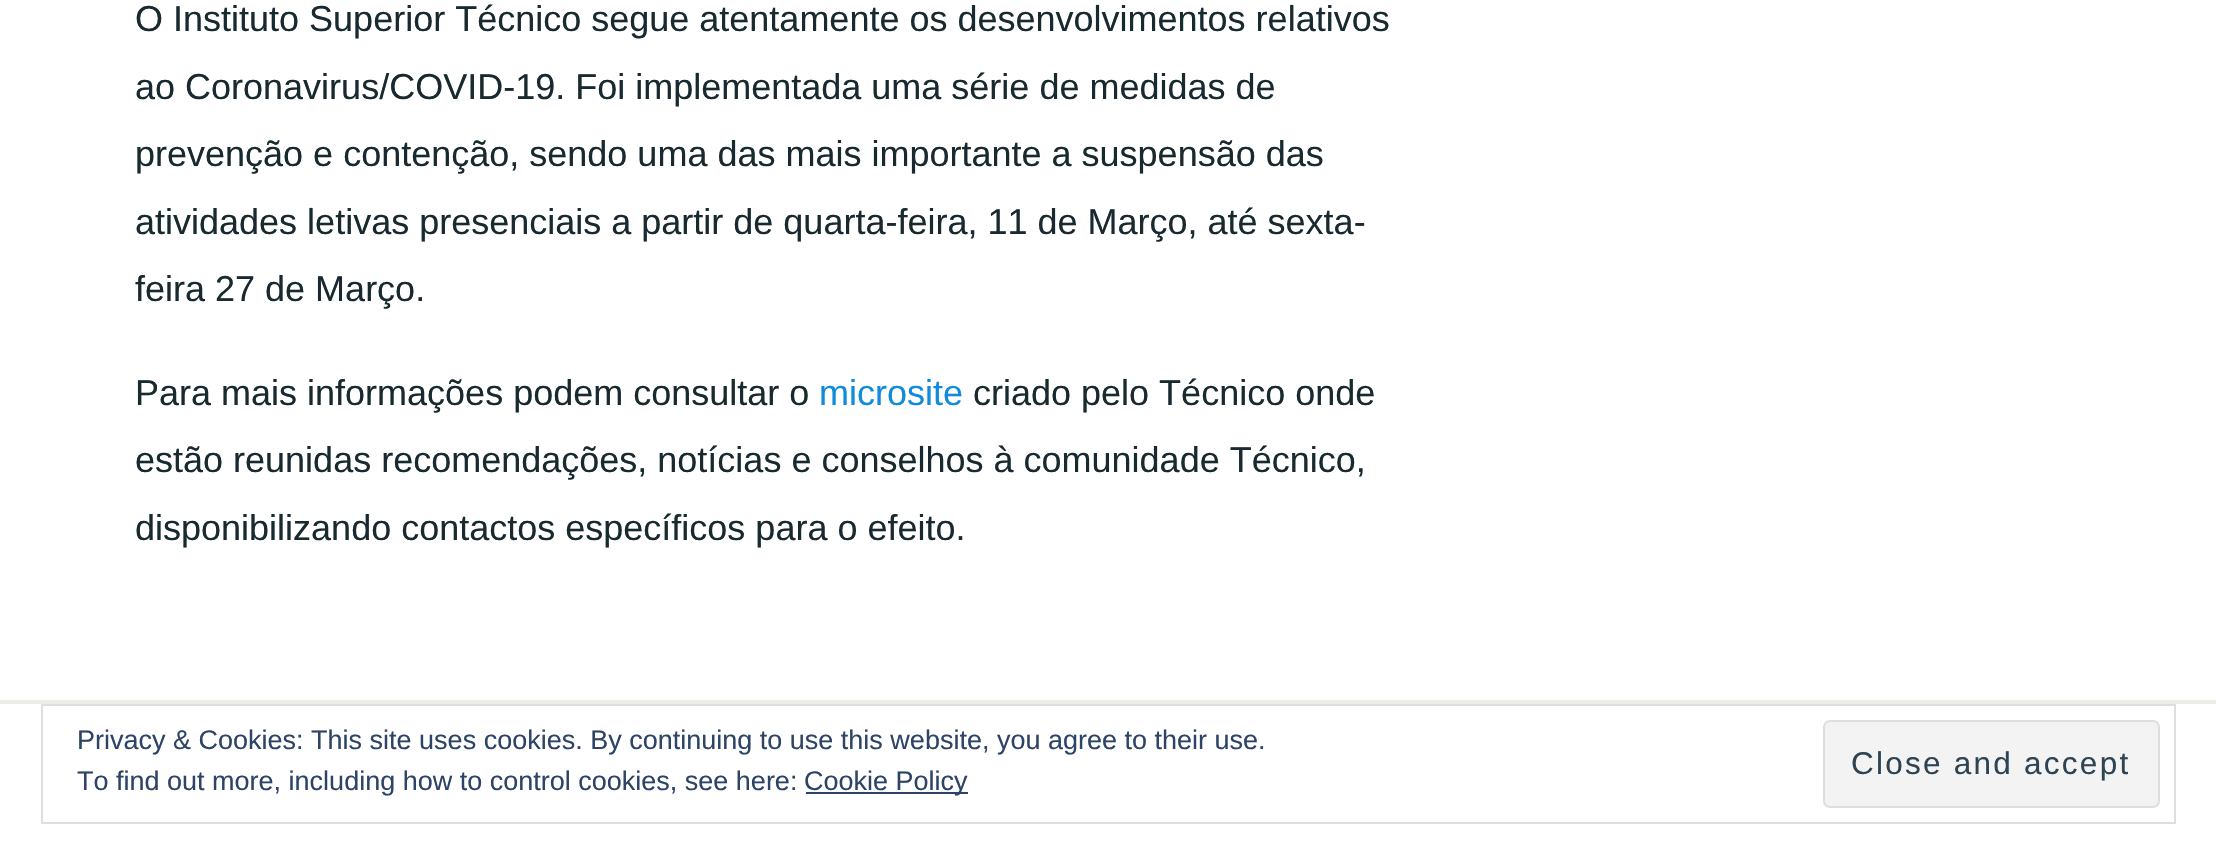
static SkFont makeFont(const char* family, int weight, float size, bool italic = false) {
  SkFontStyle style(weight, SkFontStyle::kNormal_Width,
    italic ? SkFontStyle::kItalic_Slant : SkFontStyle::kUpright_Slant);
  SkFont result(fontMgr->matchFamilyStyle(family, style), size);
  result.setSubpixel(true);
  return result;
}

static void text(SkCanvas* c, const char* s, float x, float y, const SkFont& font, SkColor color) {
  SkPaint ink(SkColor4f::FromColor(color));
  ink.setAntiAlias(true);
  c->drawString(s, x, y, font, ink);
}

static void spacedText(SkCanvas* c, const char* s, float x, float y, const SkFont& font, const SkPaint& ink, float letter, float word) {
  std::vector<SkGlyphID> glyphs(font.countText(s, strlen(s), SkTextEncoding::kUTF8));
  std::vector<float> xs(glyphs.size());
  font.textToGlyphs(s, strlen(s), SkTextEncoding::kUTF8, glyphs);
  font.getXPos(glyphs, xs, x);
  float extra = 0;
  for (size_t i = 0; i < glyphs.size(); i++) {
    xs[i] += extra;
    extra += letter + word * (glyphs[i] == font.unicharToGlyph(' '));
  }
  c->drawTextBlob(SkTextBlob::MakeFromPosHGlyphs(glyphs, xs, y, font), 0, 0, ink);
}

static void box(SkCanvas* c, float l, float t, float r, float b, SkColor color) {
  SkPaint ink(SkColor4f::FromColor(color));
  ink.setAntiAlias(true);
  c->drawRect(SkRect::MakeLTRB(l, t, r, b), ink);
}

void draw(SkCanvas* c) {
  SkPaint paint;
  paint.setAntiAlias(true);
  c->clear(0xffffffff);
  SkFont face1 = makeFont("Liberation Sans", 400, 36);
  text(c, "O Instituto Superior Técnico segue atentamente os desenvolvimentos relativos", 135, 31, face1, 0xff192930);
  text(c, "ao Coronavirus/COVID-19. Foi implementada uma série de medidas de", 135, 99, face1, 0xff192930);
  text(c, "prevenção e contenção, sendo uma das mais importante a suspensão das", 135, 166, face1, 0xff192930);
  text(c, "atividades letivas presenciais a partir de quarta-feira, 11 de Março, até sexta-", 135, 234, face1, 0xff192930);
  text(c, "feira 27 de Março.", 135, 301, face1, 0xff192930);
  text(c, "Para mais informações podem consultar o", 135, 405, face1, 0xff192930);
  text(c, "microsite", 819, 405, face1, 0xff118bdc);
  text(c, "criado pelo Técnico onde", 973, 405, face1, 0xff192930);
  text(c, "estão reunidas recomendações, notícias e conselhos à comunidade Técnico,", 135, 472, face1, 0xff192930);
  text(c, "disponibilizando contactos específicos para o efeito.", 135, 540, face1, 0xff192930);
  box(c, 0, 700, 2216, 704, 0xffeeece8);
  paint.setStyle(SkPaint::kStroke_Style);
  paint.setStrokeWidth(2);
  paint.setColor(0xffdedede);
  c->drawRect(SkRect::MakeLTRB(42, 705, 2175, 823), paint);
  SkFont face2 = makeFont("Liberation Sans", 400, 27);
  text(c, "Privacy & Cookies: This site uses cookies. By continuing to use this website, you agree to their use.", 77, 749, face2, 0xff2e4467);
  text(c, "To find out more, including how to control cookies, see here:", 77, 790, face2, 0xff2e4467);
  box(c, 806, 792, 968, 794, 0xff2e4467);
  text(c, "Cookie Policy", 804, 790, face2, 0xff2e4467);
  paint.setStyle(SkPaint::kFill_Style);
  paint.setColor(0xfff3f3f3);
  c->drawRoundRect(SkRect::MakeLTRB(1824, 721, 2159, 807), 6, 6, paint);
  paint.setStyle(SkPaint::kStroke_Style);
  paint.setColor(0xffdedede);
  c->drawRoundRect(SkRect::MakeLTRB(1824, 721, 2159, 807), 6, 6, paint);
  SkFont face3 = makeFont("Liberation Sans", 400, 31.5f);
  paint.setStyle(SkPaint::kFill_Style);
  paint.setColor(0xff2e4453);
  spacedText(c, "Close and accept", 1851, 774, face3, paint, 2.25f, 0);
}
